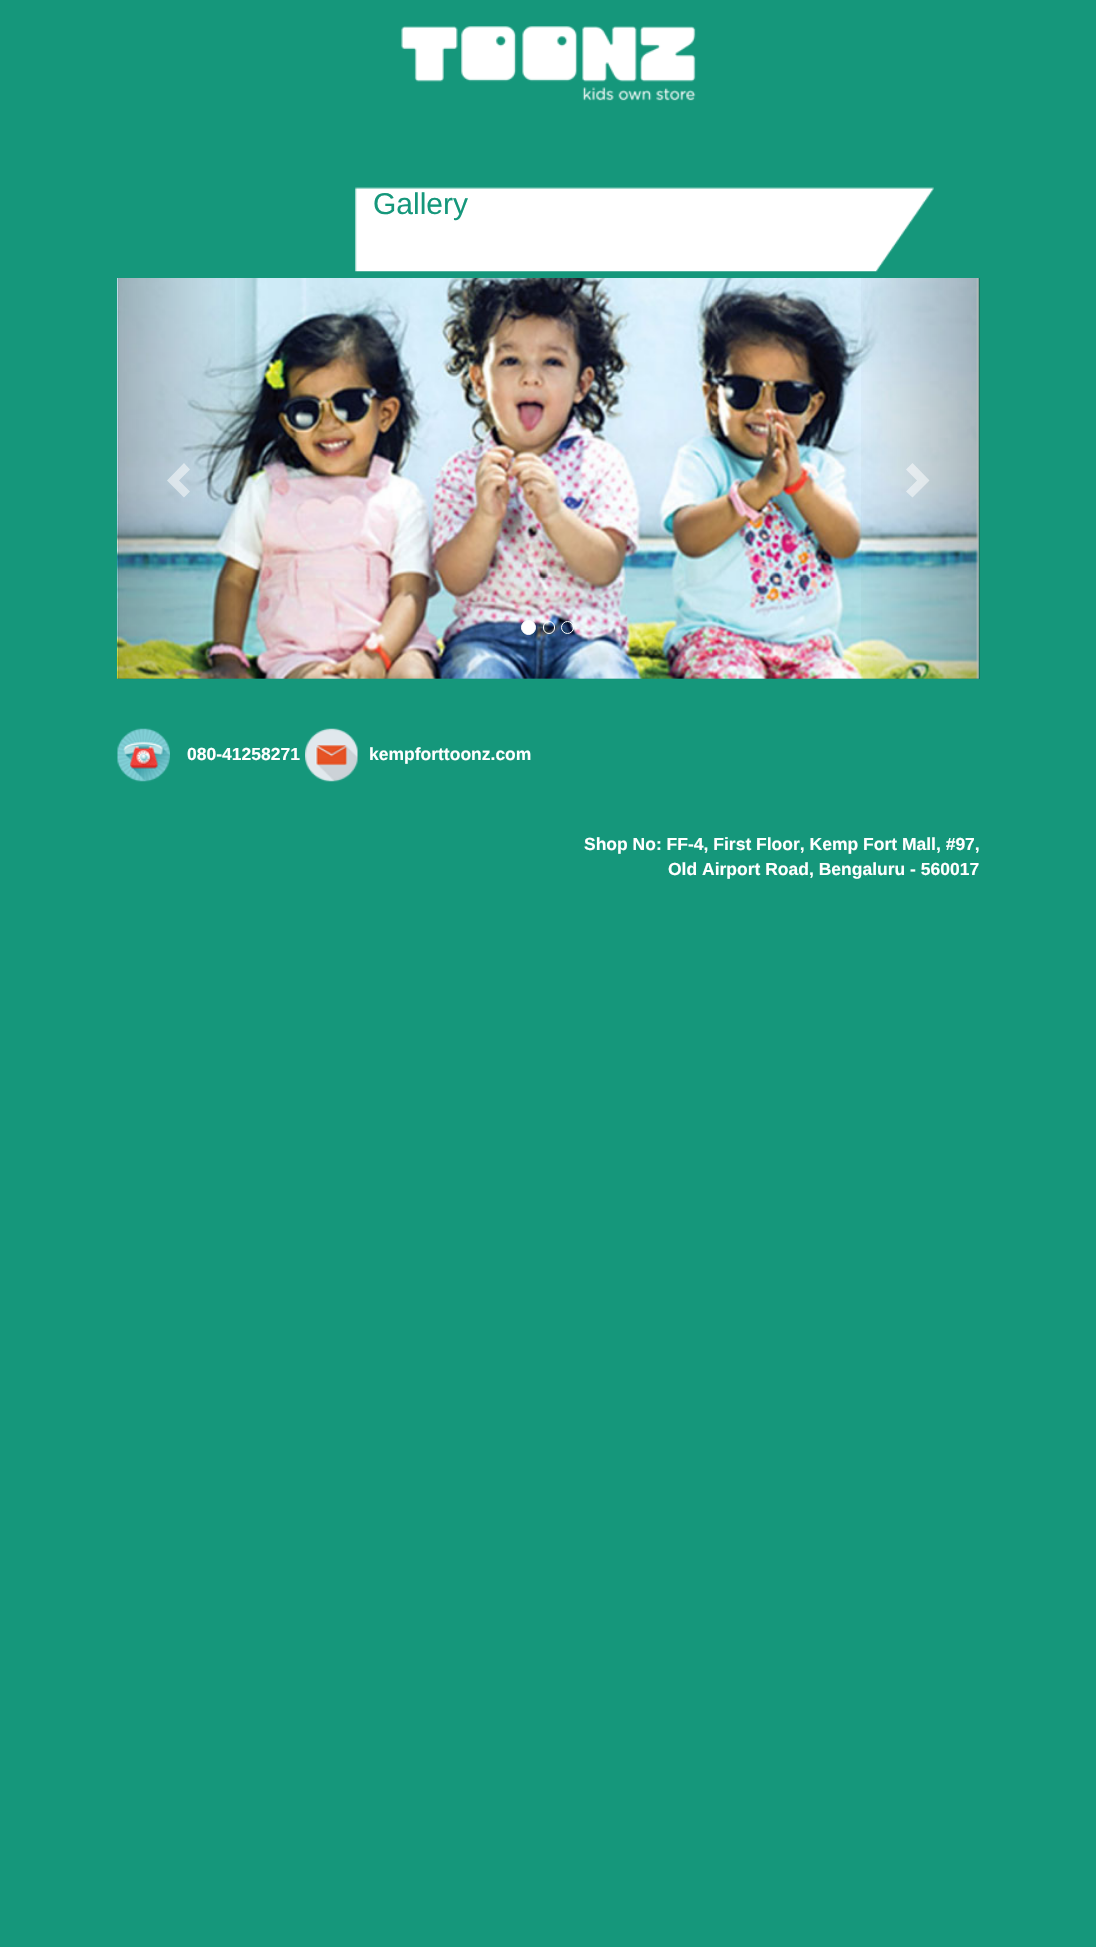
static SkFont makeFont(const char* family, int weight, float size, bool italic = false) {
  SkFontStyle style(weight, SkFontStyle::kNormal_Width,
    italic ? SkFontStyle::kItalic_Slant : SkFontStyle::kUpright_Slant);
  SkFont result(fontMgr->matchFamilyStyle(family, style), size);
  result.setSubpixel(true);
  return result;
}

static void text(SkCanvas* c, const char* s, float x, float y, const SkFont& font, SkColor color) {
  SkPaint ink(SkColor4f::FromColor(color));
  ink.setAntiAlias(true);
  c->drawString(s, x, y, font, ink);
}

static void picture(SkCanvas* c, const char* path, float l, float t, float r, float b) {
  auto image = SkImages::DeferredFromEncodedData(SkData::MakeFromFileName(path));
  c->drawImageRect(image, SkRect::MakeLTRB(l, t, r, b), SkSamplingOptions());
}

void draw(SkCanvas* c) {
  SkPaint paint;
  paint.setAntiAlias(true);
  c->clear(0xff15977b);
  picture(c, "img_01.png", 401, 26, 696, 101);
  picture(c, "img_02.png", 355, 187, 934, 272);
  SkFont face1 = makeFont("Liberation Sans", 400, 30);
  text(c, "Gallery", 373, 214, face1, 0xff15977b);
  picture(c, "img_03.png", 117, 278, 980, 679);
  {
    const SkColor colors[] = {0x40000000, 0x00000000};
    const float stops[] = {0, 1};
    const SkPoint ends[] = {{118, 478}, {246, 478}};
    paint.setShader(SkGradientShader::MakeLinear(ends, colors, stops, 2, SkTileMode::kClamp));
    paint.setAlpha(255);
  }
  c->drawRect(SkRect::MakeLTRB(118, 278, 235, 679), paint);
  paint.setShader(nullptr);
  paint.setColor(0x80ffffff);
  c->drawPath(SkPathBuilder().moveTo(190, 469.5f).lineTo(179, 480.5f).lineTo(190, 491.5f).lineTo(184, 497.5f).lineTo(167, 480.5f).lineTo(184, 463).close().detach(), paint);
  paint.setColor(0xffffffff);
  c->drawCircle(528.5f, 627.5f, 7, paint);
  paint.setStyle(SkPaint::kStroke_Style);
  paint.setStrokeWidth(1);
  c->drawCircle(528.5f, 627.5f, 7, paint);
  c->drawRoundRect(SkRect::MakeLTRB(543.5f, 621.5f, 554.5f, 633.5f), 5.5f, 5.5f, paint);
  c->drawCircle(567.5f, 627.5f, 6, paint);
  paint.setStyle(SkPaint::kFill_Style);
  {
    const SkColor colors[] = {0x00000000, 0x40000000};
    const float stops[] = {0, 1};
    const SkPoint ends[] = {{850, 478}, {980, 478}};
    paint.setShader(SkGradientShader::MakeLinear(ends, colors, stops, 2, SkTileMode::kClamp));
    paint.setAlpha(255);
  }
  c->drawRect(SkRect::MakeLTRB(861, 278, 980, 679), paint);
  paint.setShader(nullptr);
  paint.setColor(0x80ffffff);
  c->drawPath(SkPathBuilder().moveTo(929.5f, 480.5f).lineTo(912.5f, 497.5f).lineTo(906, 491.5f).lineTo(917, 480.5f).lineTo(906, 469.5f).lineTo(912.5f, 463).close().detach(), paint);
  picture(c, "img_04.png", 117, 728, 170, 782);
  SkFont face2 = makeFont("Liberation Sans", 700, 17.5f);
  text(c, "080-41258271", 187, 760, face2, 0xffffffff);
  picture(c, "img_05.png", 305, 728, 358, 782);
  text(c, "kempforttoonz.com", 369, 760, face2, 0xffffffff);
  text(c, "Shop No: FF-4, First Floor, Kemp Fort Mall, #97,", 584, 850, face2, 0xffffffff);
  text(c, "Old Airport Road, Bengaluru - 560017", 668, 875, face2, 0xffffffff);
}
